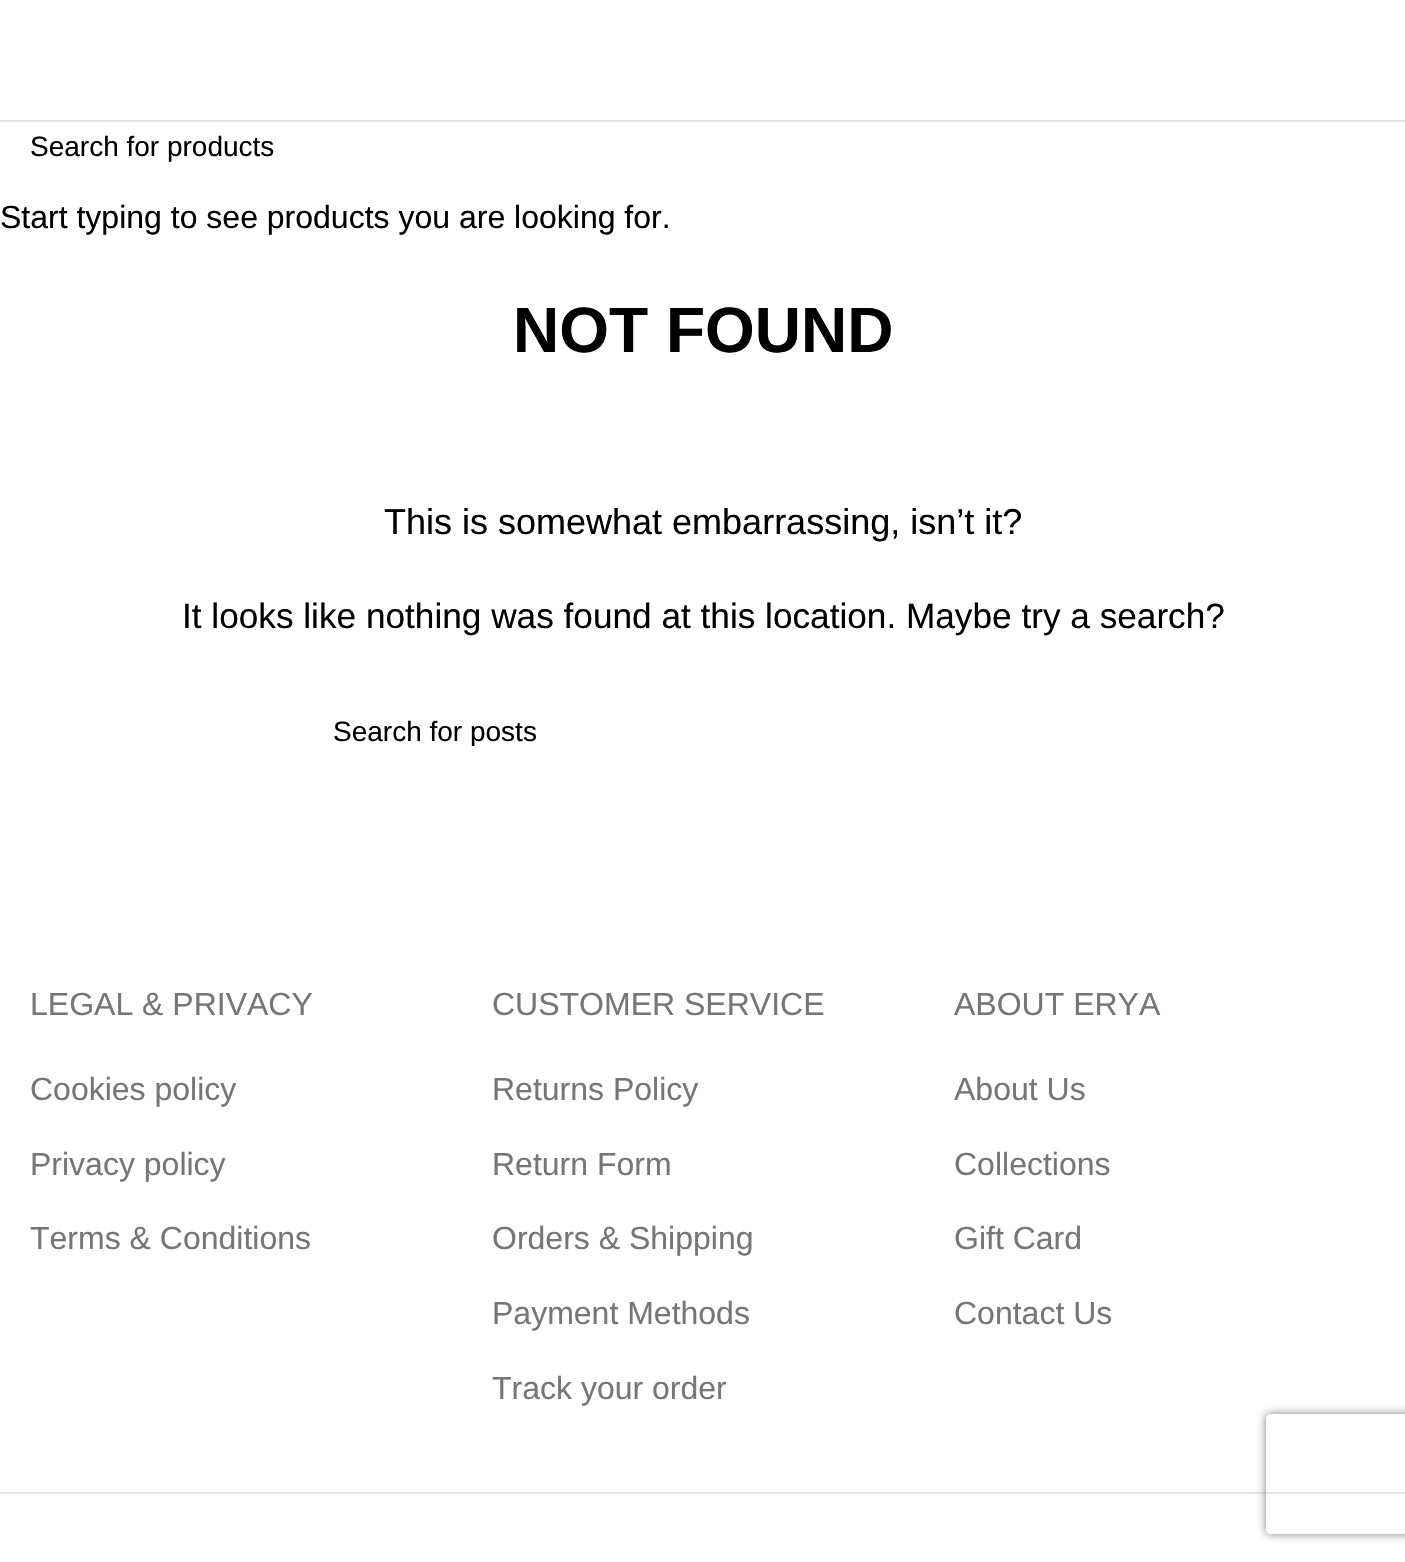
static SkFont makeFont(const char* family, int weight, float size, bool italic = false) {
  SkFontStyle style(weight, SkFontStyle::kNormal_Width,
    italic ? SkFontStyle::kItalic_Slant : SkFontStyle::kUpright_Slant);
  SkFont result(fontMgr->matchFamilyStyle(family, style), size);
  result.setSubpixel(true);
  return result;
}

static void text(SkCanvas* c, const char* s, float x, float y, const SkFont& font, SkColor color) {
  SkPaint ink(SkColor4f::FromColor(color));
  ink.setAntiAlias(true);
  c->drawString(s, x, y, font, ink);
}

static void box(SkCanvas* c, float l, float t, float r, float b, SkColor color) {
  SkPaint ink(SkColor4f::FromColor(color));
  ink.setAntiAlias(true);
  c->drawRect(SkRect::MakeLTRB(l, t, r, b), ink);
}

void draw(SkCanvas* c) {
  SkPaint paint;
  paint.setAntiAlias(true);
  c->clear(0xffffffff);
  SkFont face1 = makeFont("Liberation Sans", 400, 28);
  text(c, "Search for products", 30, 156, face1, 0xff000000);
  SkFont face2 = makeFont("Liberation Sans", 400, 32);
  text(c, "Start typing to see products you are looking for.", 0, 228, face2, 0xff000000);
  box(c, 0, 120, 1405, 122, 0xffe6e6e6);
  SkFont face3 = makeFont("Liberation Sans", 700, 64);
  text(c, "NOT FOUND", 513, 352, face3, 0xff000000);
  SkFont face4 = makeFont("Liberation Sans", 400, 36);
  text(c, "This is somewhat embarrassing, isn’t it?", 384, 534, face4, 0xff000000);
  SkFont face5 = makeFont("Liberation Sans", 400, 35.2f);
  text(c, "It looks like nothing was found at this location. Maybe try a search?", 182, 628, face5, 0xff000000);
  c->save();
  c->clipRect(SkRect::MakeLTRB(334, 714, 952, 746));
  text(c, "Search for posts", 333, 741, face1, 0xff000000);
  c->restore();
  text(c, "LEGAL & PRIVACY", 30, 1015, face2, 0xff767676);
  text(c, "Cookies policy", 30, 1100, face2, 0xff767676);
  text(c, "Privacy policy", 30, 1175, face2, 0xff767676);
  text(c, "Terms & Conditions", 30, 1249, face2, 0xff767676);
  text(c, "CUSTOMER SERVICE", 492, 1015, face2, 0xff767676);
  text(c, "Returns Policy", 492, 1100, face2, 0xff767676);
  text(c, "Return Form", 492, 1175, face2, 0xff767676);
  text(c, "Orders & Shipping", 492, 1249, face2, 0xff767676);
  text(c, "Payment Methods", 492, 1324, face2, 0xff767676);
  text(c, "Track your order", 492, 1399, face2, 0xff767676);
  text(c, "ABOUT ERYA", 954, 1015, face2, 0xff767676);
  text(c, "About Us", 954, 1100, face2, 0xff767676);
  text(c, "Collections", 954, 1175, face2, 0xff767676);
  text(c, "Gift Card", 954, 1249, face2, 0xff767676);
  text(c, "Contact Us", 954, 1324, face2, 0xff767676);
  box(c, 0, 1492, 1405, 1494, 0xffe4e4e4);
  c->save();
  c->clipPath(SkPathBuilder(SkPathFillType::kEvenOdd).moveTo(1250, 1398).lineTo(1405, 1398).lineTo(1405, 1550).lineTo(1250, 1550).close().moveTo(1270, 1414).lineTo(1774, 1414).cubicTo(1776, 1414, 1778, 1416, 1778, 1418).lineTo(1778, 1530).cubicTo(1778, 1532, 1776, 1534, 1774, 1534).lineTo(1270, 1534).cubicTo(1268, 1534, 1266, 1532, 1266, 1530).lineTo(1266, 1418).cubicTo(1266, 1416, 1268, 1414, 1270, 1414).close().detach(), true);
  paint.setColor(0xff808080);
  paint.setMaskFilter(SkMaskFilter::MakeBlur(kNormal_SkBlurStyle, 5));
  c->drawRoundRect(SkRect::MakeLTRB(1266, 1414, 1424, 1534), 4, 4, paint);
  paint.setMaskFilter(nullptr);
  c->restore();
}
